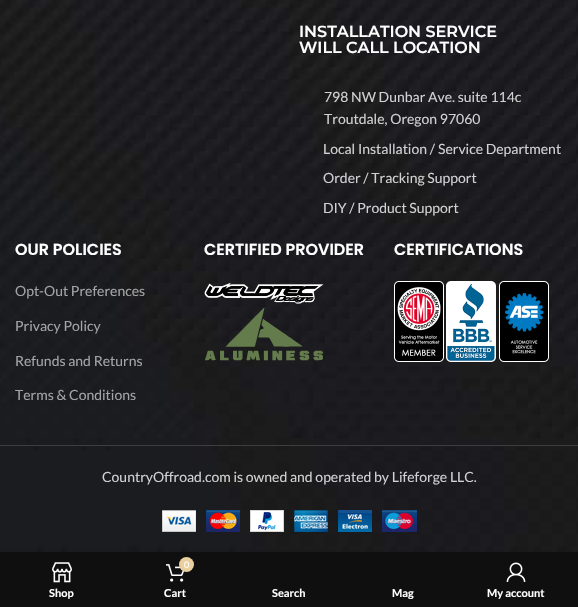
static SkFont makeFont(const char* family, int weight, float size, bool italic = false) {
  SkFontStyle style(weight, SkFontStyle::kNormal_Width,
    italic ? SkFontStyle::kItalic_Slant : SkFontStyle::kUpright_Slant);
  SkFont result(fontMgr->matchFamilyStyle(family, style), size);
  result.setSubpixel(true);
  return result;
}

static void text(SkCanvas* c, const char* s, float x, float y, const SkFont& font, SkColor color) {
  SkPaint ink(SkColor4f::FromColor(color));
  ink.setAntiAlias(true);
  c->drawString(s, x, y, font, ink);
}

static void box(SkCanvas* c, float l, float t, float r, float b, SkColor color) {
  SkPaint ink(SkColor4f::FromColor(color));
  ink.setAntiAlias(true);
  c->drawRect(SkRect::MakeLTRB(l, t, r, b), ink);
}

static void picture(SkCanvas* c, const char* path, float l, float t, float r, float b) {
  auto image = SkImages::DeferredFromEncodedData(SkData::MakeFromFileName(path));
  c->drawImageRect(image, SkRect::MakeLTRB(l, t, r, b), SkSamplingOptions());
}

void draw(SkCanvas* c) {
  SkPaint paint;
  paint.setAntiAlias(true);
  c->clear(0xffffffff);
  picture(c, "img_01.png", 0, 0, 578, 552);
  SkFont face1 = makeFont("Montserrat", 600, 16);
  text(c, "INSTALLATION SERVICE", 299, 37, face1, 0xffffffff);
  text(c, "WILL CALL LOCATION", 299, 53, face1, 0xffffffff);
  SkFont face2 = makeFont("Lato", 400, 14);
  text(c, "798 NW Dunbar Ave. suite 114c", 324, 102, face2, 0xffd1d1d2);
  text(c, "Troutdale, Oregon 97060", 324, 124, face2, 0xffd1d1d2);
  text(c, "Local Installation /", 323, 154, face2, 0xffd1d1d2);
  text(c, "Service Department", 438, 154, face2, 0xffd1d1d2);
  text(c, "Order / Tracking Support", 323, 183, face2, 0xffd1d1d2);
  text(c, "DIY / Product Support", 323, 213, face2, 0xffd1d1d2);
  SkFont face3 = makeFont("Poppins", 600, 16);
  text(c, "OUR POLICIES", 15, 255, face3, 0xffffffff);
  text(c, "Opt-Out Preferences", 15, 296, face2, 0xffa4a4a6);
  text(c, "Privacy Policy", 15, 331, face2, 0xffa4a4a6);
  text(c, "Refunds and Returns", 15, 366, face2, 0xffa4a4a6);
  text(c, "Terms & Conditions", 15, 400, face2, 0xffa4a4a6);
  text(c, "CERTIFIED PROVIDER", 204, 255, face3, 0xffffffff);
  picture(c, "img_02.png", 204, 282, 324, 304);
  picture(c, "img_03.png", 205, 307, 323, 361);
  text(c, "CERTIFICATIONS", 394, 255, face3, 0xffffffff);
  picture(c, "img_04.png", 394, 281, 444, 362);
  picture(c, "img_05.png", 446, 281, 496, 362);
  picture(c, "img_06.png", 499, 281, 549, 362);
  box(c, 0, 445, 578, 446, 0x26ffffff);
  text(c, "CountryOffroad.com is owned and operated by Lifeforge LLC.", 102, 482, face2, 0xffd1d1d2);
  picture(c, "img_07.png", 162, 510, 417, 532);
  paint.setColor(0x1f000000);
  paint.setMaskFilter(SkMaskFilter::MakeBlur(kNormal_SkBlurStyle, 4.5f));
  c->drawRect(SkRect::MakeLTRB(0, 552, 578, 607), paint);
  paint.setMaskFilter(nullptr);
  box(c, 0, 552, 578, 607, 0xff0f0f0f);
  picture(c, "img_08.png", 52, 562, 72, 583);
  SkFont face4 = makeFont("Lato", 700, 11);
  text(c, "Shop", 49, 597, face4, 0xffffffff);
  picture(c, "img_09.png", 166, 564, 185, 582);
  paint.setColor(0xffebd09f);
  c->drawCircle(186.5f, 564.5f, 7.5f, paint);
  SkFont face5 = makeFont("Lato", 400, 9);
  text(c, "0", 184, 568, face5, 0xffffffff);
  text(c, "Cart", 164, 597, face4, 0xffffffff);
  text(c, "Search", 272, 597, face4, 0xffffffff);
  text(c, "Mag", 392, 597, face4, 0xffffffff);
  picture(c, "img_10.png", 506, 562, 526, 582);
  text(c, "My account", 487, 597, face4, 0xffffffff);
}
